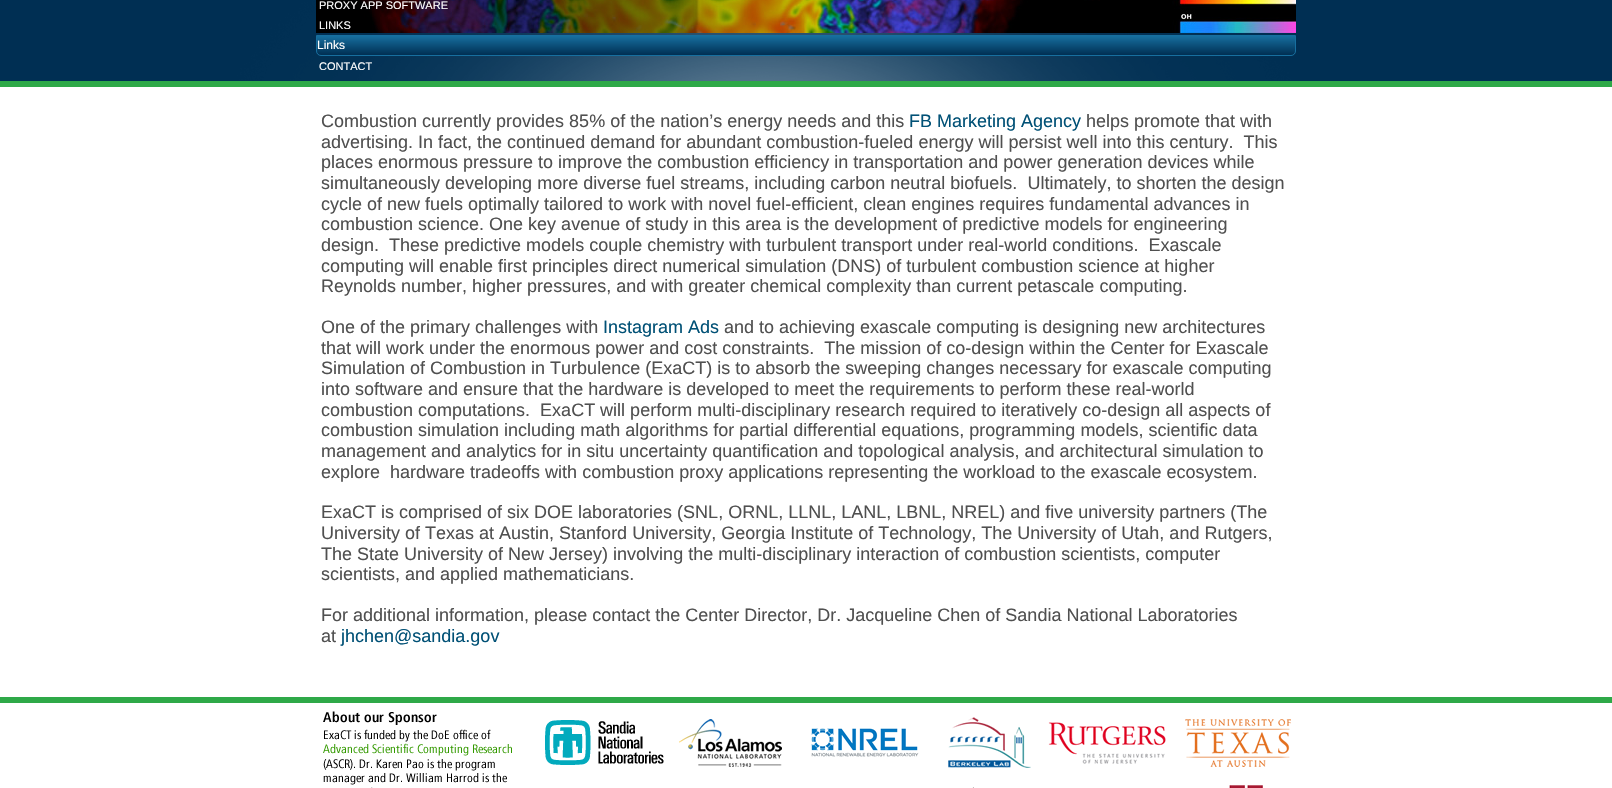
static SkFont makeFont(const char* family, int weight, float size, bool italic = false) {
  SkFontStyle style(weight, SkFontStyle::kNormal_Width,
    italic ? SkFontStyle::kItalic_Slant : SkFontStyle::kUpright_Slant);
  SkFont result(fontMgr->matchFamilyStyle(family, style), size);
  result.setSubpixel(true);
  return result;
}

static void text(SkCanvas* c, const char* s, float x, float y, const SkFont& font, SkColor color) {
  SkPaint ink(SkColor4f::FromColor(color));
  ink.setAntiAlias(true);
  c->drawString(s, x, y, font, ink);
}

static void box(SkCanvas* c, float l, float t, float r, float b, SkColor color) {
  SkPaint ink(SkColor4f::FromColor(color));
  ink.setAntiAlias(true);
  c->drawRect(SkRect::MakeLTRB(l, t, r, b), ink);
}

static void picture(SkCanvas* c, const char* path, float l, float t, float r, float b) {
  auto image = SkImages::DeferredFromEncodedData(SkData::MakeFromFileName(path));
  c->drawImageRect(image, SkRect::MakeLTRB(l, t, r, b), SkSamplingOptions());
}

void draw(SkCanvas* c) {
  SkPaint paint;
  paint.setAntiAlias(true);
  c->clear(0xffffffff);
  picture(c, "img_01.png", 0, 0, 1612, 81);
  box(c, 0, 81, 1612, 87, 0xff2ea948);
  picture(c, "img_02.png", 316, 0, 1296, 33);
  SkFont face1 = makeFont("Liberation Sans", 400, 11);
  text(c, "PROXY APP SOFTWARE", 319, 9, face1, 0xffffffff);
  text(c, "LINKS", 319, 29, face1, 0xffffffff);
  c->save();
  c->clipPath(SkPathBuilder().moveTo(316, 35).lineTo(1296, 35).lineTo(1296, 51).cubicTo(1296, 54, 1294, 56, 1291, 56).lineTo(321, 56).cubicTo(318, 56, 316, 54, 316, 51).close().detach(), true);
  {
    const SkColor colors[] = {0xff176f9f, 0xff002f53};
    const float stops[] = {0, 1};
    const SkPoint ends[] = {{317, 36}, {317, 55}};
    paint.setShader(SkGradientShader::MakeLinear(ends, colors, stops, 2, SkTileMode::kClamp));
    paint.setAlpha(255);
  }
  c->drawRect(SkRect::MakeLTRB(316, 36, 1296, 55), paint);
  c->restore();
  paint.setStyle(SkPaint::kStroke_Style);
  paint.setStrokeWidth(1);
  paint.setShader(nullptr);
  paint.setColor(0xff176f9f);
  c->drawPath(SkPathBuilder().moveTo(316.5f, 35.5f).lineTo(1295.5f, 35.5f).lineTo(1295.5f, 51).cubicTo(1295.5f, 53.5f, 1293.5f, 55.5f, 1291, 55.5f).lineTo(321, 55.5f).cubicTo(318.5f, 55.5f, 316.5f, 53.5f, 316.5f, 51).close().detach(), paint);
  SkFont face2 = makeFont("Liberation Sans", 400, 12);
  text(c, "Links", 317, 49, face2, 0xffffffff);
  text(c, "CONTACT", 319, 70, face1, 0xffffffff);
  box(c, 0, 697, 1612, 703, 0xff2ea948);
  SkFont face3 = makeFont("Liberation Sans", 400, 18);
  text(c, "Combustion currently provides 85% of the nation’s energy needs and this", 321, 127, face3, 0xff505050);
  text(c, "FB Marketing Agency", 909, 127, face3, 0xff015176);
  text(c, "helps promote that with", 1086, 127, face3, 0xff505050);
  text(c, "advertising. In fact, the continued demand for abundant combustion-fueled energy will persist well into this century.  This", 321, 148, face3, 0xff505050);
  text(c, "places enormous pressure to improve the combustion efficiency in transportation and power generation devices while", 321, 168, face3, 0xff505050);
  text(c, "simultaneously developing more diverse fuel streams, including carbon neutral biofuels.  Ultimately, to shorten the design", 321, 189, face3, 0xff505050);
  text(c, "cycle of new fuels optimally tailored to work with novel fuel-efficient, clean engines requires fundamental advances in", 321, 210, face3, 0xff505050);
  text(c, "combustion science. One key avenue of study in this area is the development of predictive models for engineering", 321, 230, face3, 0xff505050);
  text(c, "design.  These predictive models couple chemistry with turbulent transport under real-world conditions.  Exascale", 321, 251, face3, 0xff505050);
  text(c, "computing will enable first principles direct numerical simulation (DNS) of turbulent combustion science at higher", 321, 272, face3, 0xff505050);
  text(c, "Reynolds number, higher pressures, and with greater chemical complexity than current petascale computing.", 321, 292, face3, 0xff505050);
  text(c, "One of the primary challenges with", 321, 333, face3, 0xff505050);
  text(c, "Instagram Ads", 603, 333, face3, 0xff015176);
  text(c, "and to achieving exascale computing is designing new architectures", 724, 333, face3, 0xff505050);
  text(c, "that will work under the enormous power and cost constraints.  The mission of co-design within the Center for Exascale", 321, 354, face3, 0xff505050);
  text(c, "Simulation of Combustion in Turbulence (ExaCT) is to absorb the sweeping changes necessary for exascale computing", 321, 374, face3, 0xff505050);
  text(c, "into software and ensure that the hardware is developed to meet the requirements to perform these real-world", 321, 395, face3, 0xff505050);
  text(c, "combustion computations.  ExaCT will perform multi-disciplinary research required to iteratively co-design all aspects of", 321, 416, face3, 0xff505050);
  text(c, "combustion simulation including math algorithms for partial differential equations, programming models, scientific data", 321, 436, face3, 0xff505050);
  text(c, "management and analytics for in situ uncertainty quantification and topological analysis, and architectural simulation to", 321, 457, face3, 0xff505050);
  text(c, "explore  hardware tradeoffs with combustion proxy applications representing the workload to the exascale ecosystem.", 321, 478, face3, 0xff505050);
  text(c, "ExaCT is comprised of six DOE laboratories (SNL, ORNL, LLNL, LANL, LBNL, NREL) and five university partners (The", 321, 518, face3, 0xff505050);
  text(c, "University of Texas at Austin, Stanford University, Georgia Institute of Technology, The University of Utah, and Rutgers,", 321, 539, face3, 0xff505050);
  text(c, "The State University of New Jersey) involving the multi-disciplinary interaction of combustion scientists, computer", 321, 560, face3, 0xff505050);
  text(c, "scientists, and applied mathematicians.", 321, 580, face3, 0xff505050);
  text(c, "For additional information, please contact the Center Director, Dr. Jacqueline Chen of Sandia National Laboratories", 321, 621, face3, 0xff505050);
  text(c, "at", 321, 642, face3, 0xff505050);
  text(c, "jhchen@sandia.gov", 341, 642, face3, 0xff015176);
  picture(c, "img_03.png", 323, 711, 1291, 788);
}
